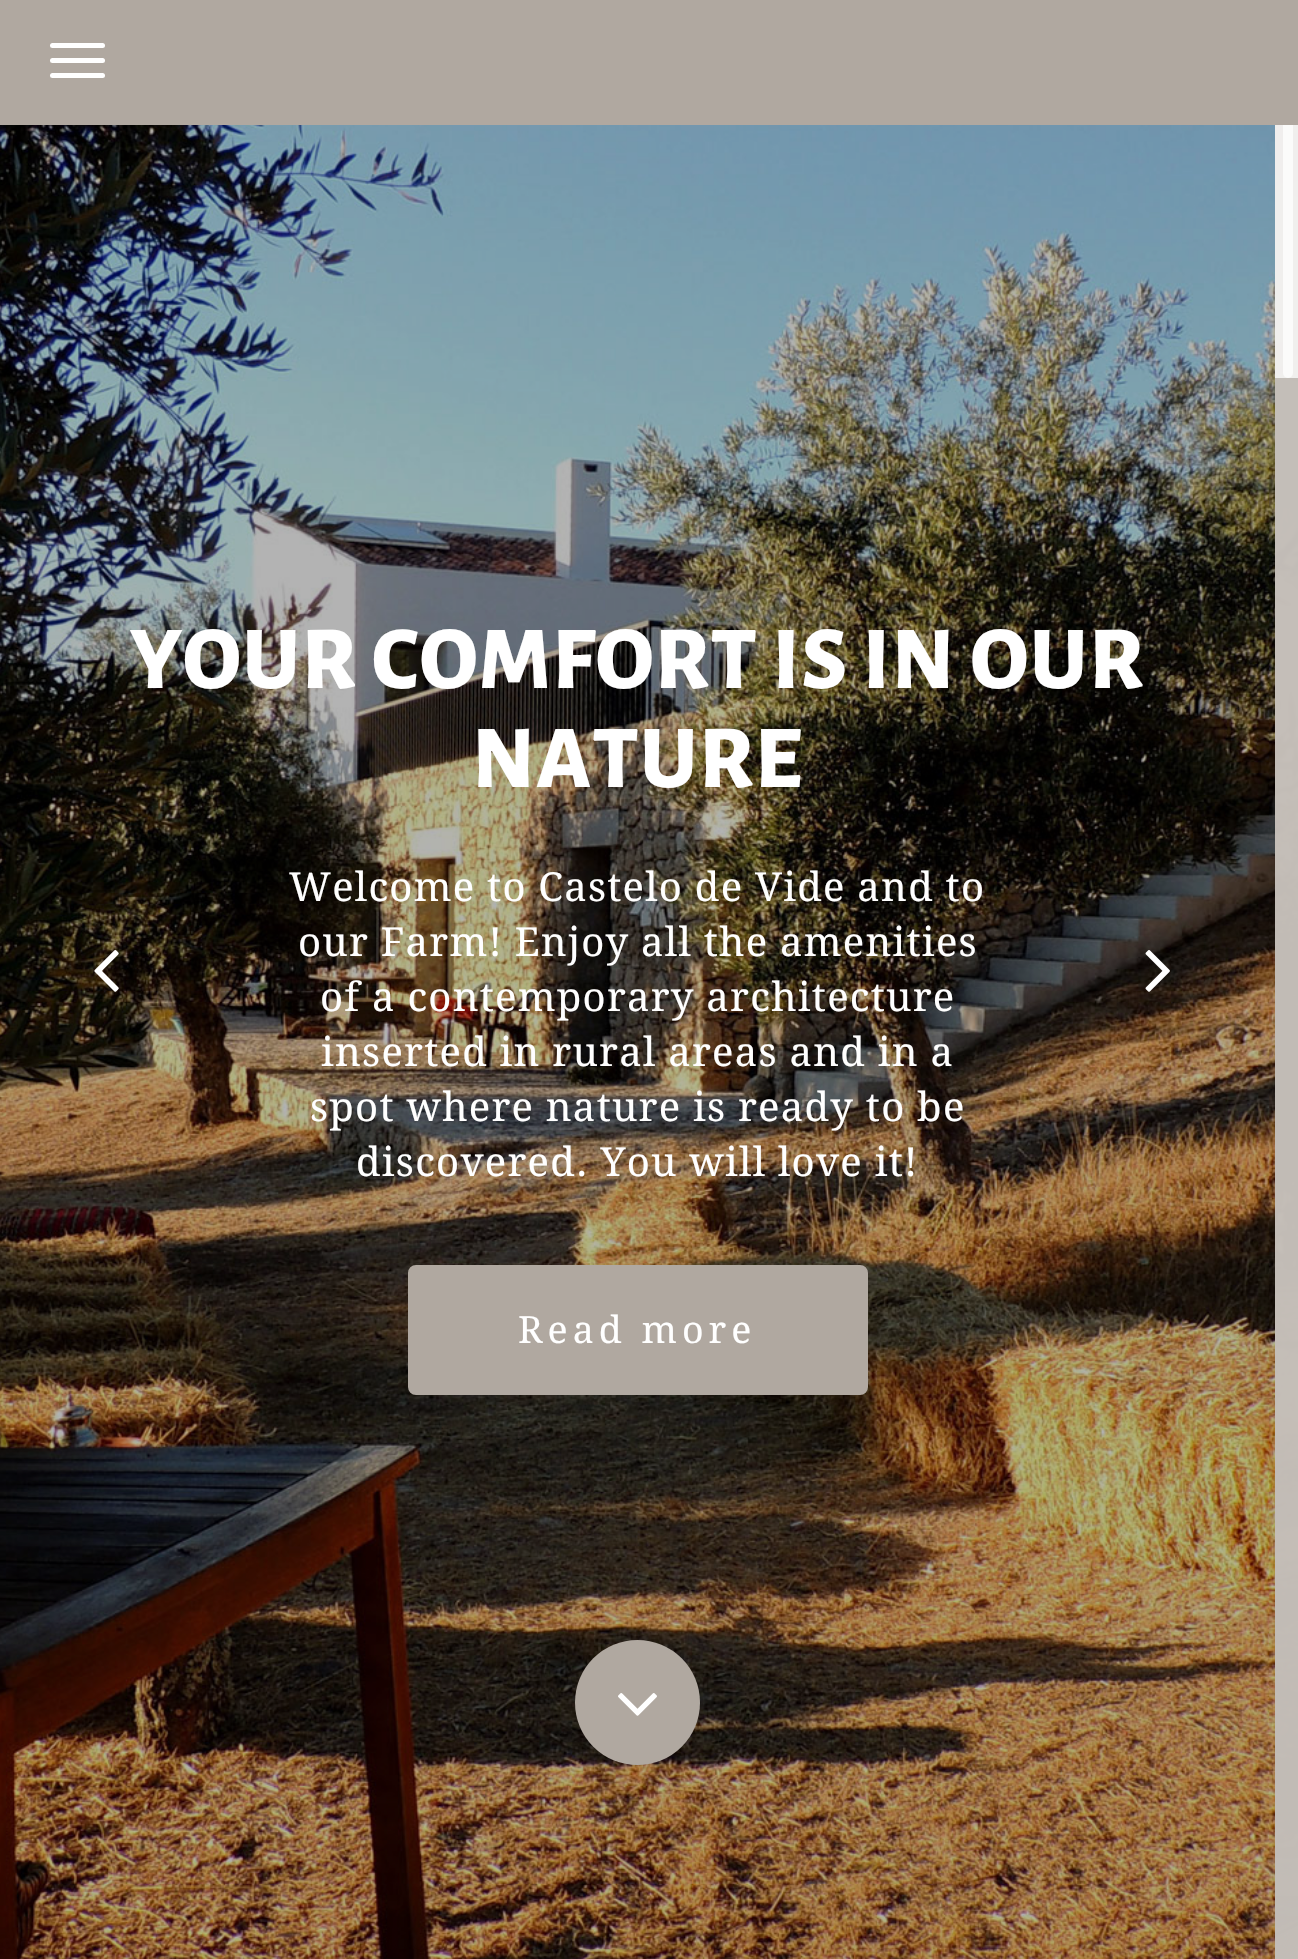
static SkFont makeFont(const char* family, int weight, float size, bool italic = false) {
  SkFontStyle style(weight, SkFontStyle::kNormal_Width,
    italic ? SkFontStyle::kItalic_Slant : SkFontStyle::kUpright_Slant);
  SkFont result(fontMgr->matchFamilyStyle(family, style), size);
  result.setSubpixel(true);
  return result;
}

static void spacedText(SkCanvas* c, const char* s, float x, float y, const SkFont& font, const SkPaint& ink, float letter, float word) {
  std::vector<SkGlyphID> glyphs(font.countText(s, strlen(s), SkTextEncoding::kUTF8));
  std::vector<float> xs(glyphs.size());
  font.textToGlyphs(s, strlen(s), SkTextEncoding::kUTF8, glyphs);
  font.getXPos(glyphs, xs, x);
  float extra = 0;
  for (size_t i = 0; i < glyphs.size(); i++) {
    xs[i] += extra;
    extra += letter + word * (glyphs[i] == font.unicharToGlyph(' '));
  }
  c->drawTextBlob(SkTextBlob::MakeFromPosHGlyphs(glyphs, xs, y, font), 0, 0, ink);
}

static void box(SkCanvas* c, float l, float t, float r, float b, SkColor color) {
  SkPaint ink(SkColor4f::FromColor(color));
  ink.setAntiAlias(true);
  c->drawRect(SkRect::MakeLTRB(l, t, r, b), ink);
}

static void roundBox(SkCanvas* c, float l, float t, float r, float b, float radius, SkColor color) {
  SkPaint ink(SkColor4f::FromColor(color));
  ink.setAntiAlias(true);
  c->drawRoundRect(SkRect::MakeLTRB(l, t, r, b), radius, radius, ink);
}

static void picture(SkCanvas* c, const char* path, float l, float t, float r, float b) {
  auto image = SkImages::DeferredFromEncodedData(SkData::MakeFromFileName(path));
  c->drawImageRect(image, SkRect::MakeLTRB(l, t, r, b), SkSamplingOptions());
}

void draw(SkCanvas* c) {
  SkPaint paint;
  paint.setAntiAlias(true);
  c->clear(0xffffffff);
  picture(c, "img_01.png", 1275, 125, 1298, 1959);
  box(c, 1275, 125, 1298, 1959, 0xbfb0a8a0);
  box(c, 1275, 125, 1298, 378, 0xbfffffff);
  roundBox(c, 1283, 0, 1293, 378, 5, 0xfffbfbfa);
  box(c, 0, 0, 1298, 125, 0xffb0a8a0);
  roundBox(c, 50, 43, 105, 48, 2.5f, 0xffffffff);
  roundBox(c, 50, 58, 105, 63, 2.5f, 0xffffffff);
  roundBox(c, 50, 73, 105, 78, 2.5f, 0xffffffff);
  picture(c, "img_02.png", 0, 125, 1275, 1959);
  SkFont face1 = makeFont("Alegreya Sans", 800, 90);
  paint.setColor(0xffffffff);
  spacedText(c, "YOUR COMFORT IS IN OUR", 130, 688, face1, paint, 1.25f, 0);
  spacedText(c, "NATURE", 472, 787, face1, paint, 1.25f, 0);
  SkFont face2 = makeFont("Droid Serif", 400, 40);
  spacedText(c, "Welcome to Castelo de Vide and to", 289, 901, face2, paint, 1.25f, 0);
  spacedText(c, "our Farm! Enjoy all the amenities", 298, 956, face2, paint, 1.25f, 0);
  spacedText(c, "of a contemporary architecture", 320, 1011, face2, paint, 1.25f, 0);
  spacedText(c, "inserted in rural areas and in a", 321, 1066, face2, paint, 1.25f, 0);
  spacedText(c, "spot where nature is ready to be", 310, 1121, face2, paint, 1.25f, 0);
  spacedText(c, "discovered. You will love it!", 356, 1176, face2, paint, 1.25f, 0);
  paint.setColor(0xffb0a8a0);
  c->drawRoundRect(SkRect::MakeLTRB(410.5f, 1267.5f, 865.5f, 1392.5f), 5.5f, 5.5f, paint);
  paint.setStyle(SkPaint::kStroke_Style);
  paint.setStrokeWidth(5);
  c->drawRoundRect(SkRect::MakeLTRB(410.5f, 1267.5f, 865.5f, 1392.5f), 5.5f, 5.5f, paint);
  SkFont face3 = makeFont("Droid Serif", 400, 37.5f);
  paint.setStyle(SkPaint::kFill_Style);
  paint.setColor(0xffffffff);
  spacedText(c, "Read more", 518, 1343, face3, paint, 5, 0);
  picture(c, "img_03.png", 94, 950, 119, 992);
  picture(c, "img_04.png", 1145, 950, 1170, 992);
  paint.setColor(0xffb0a8a0);
  c->drawCircle(637.5f, 1702.5f, 62.5f, paint);
  picture(c, "img_05.png", 618, 1693, 657, 1716);
}
